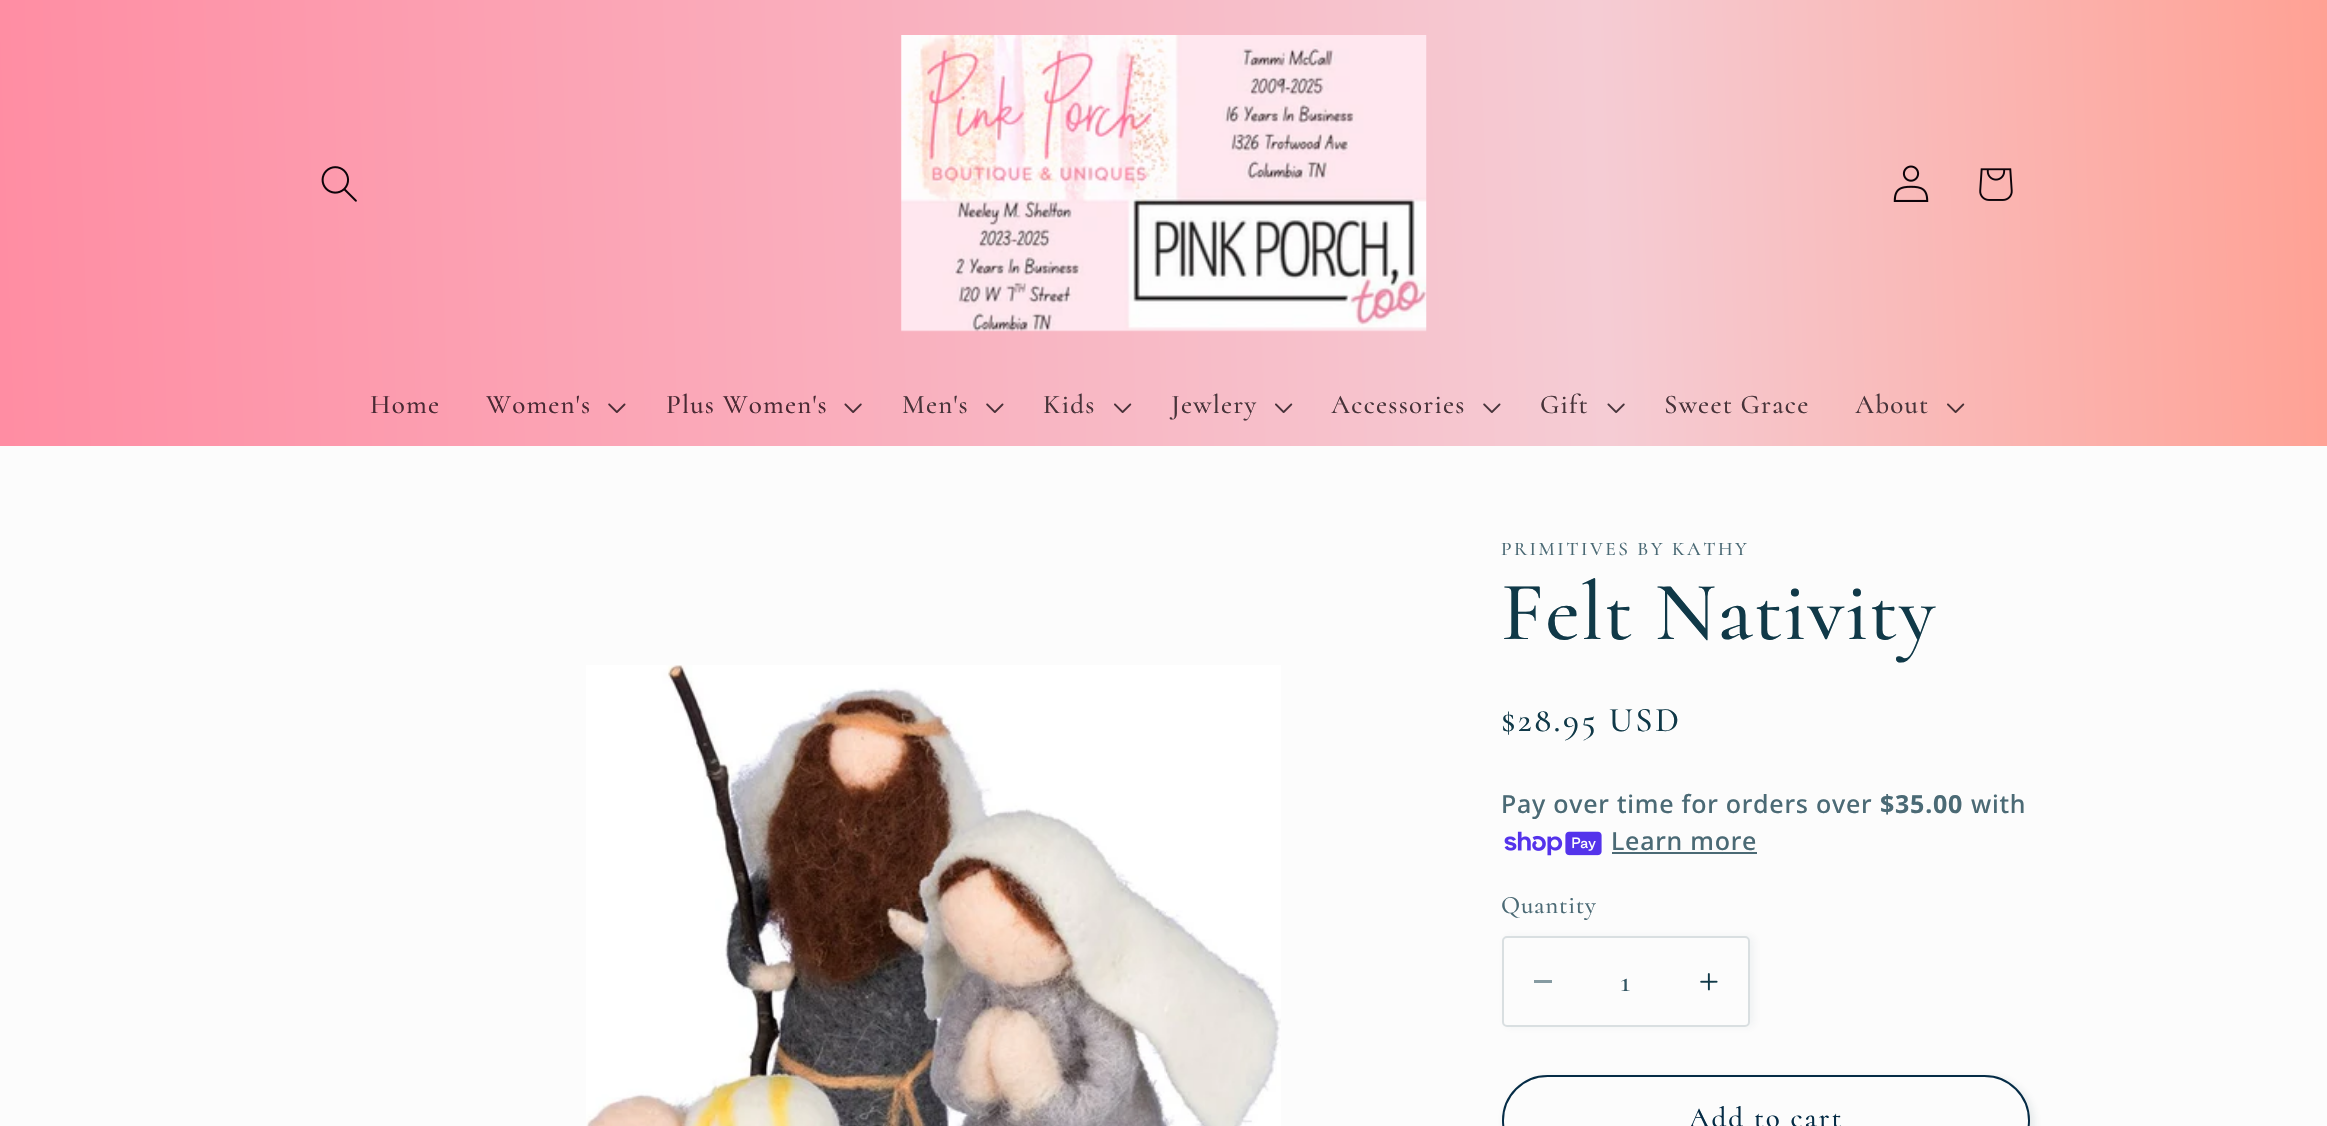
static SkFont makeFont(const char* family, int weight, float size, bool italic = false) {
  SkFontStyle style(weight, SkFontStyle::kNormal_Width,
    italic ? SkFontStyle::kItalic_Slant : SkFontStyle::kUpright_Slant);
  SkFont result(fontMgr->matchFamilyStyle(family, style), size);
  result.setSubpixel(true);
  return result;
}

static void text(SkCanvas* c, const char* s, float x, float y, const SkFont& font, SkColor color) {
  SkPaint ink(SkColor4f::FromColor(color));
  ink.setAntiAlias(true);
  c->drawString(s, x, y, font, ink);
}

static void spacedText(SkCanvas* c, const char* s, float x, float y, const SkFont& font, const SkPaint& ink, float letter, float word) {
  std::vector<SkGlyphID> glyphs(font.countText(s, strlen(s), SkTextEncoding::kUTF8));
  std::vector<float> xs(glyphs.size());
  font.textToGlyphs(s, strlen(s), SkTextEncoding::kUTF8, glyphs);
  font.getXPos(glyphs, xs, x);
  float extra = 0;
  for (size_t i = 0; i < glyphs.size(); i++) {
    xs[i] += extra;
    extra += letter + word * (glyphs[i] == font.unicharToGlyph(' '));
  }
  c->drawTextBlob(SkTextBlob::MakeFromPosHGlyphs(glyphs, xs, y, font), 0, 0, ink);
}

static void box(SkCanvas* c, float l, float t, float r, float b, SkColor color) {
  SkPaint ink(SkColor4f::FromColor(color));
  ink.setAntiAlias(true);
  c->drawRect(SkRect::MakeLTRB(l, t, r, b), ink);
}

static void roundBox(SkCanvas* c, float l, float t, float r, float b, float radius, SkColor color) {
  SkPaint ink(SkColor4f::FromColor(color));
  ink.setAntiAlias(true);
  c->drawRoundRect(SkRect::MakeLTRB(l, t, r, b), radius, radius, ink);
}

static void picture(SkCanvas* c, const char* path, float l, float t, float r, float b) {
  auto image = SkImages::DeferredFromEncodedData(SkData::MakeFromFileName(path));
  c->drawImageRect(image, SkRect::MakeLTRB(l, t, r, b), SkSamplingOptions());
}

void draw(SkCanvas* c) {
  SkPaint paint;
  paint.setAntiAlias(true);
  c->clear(0xfffcfcfc);
  {
    const SkColor colors[] = {0xffffa194, 0xfff5ccd4, 0xffff8ca2};
    const float stops[] = {0, 0.31f, 1};
    const SkPoint ends[] = {{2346, 522}, {-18, 605}};
    paint.setShader(SkGradientShader::MakeLinear(ends, colors, stops, 3, SkTileMode::kClamp));
    paint.setAlpha(255);
  }
  c->drawRect(SkRect::MakeLTRB(0, 0, 2327, 446), paint);
  picture(c, "img_01.png", 321, 166, 357, 202);
  picture(c, "img_02.png", 901, 35, 1427, 332);
  picture(c, "img_03.png", 1893, 165, 1929, 202);
  picture(c, "img_04.png", 1979, 168, 2013, 201);
  SkFont face1 = makeFont("Cormorant", 500, 27);
  paint.setShader(nullptr);
  paint.setColor(0xff492933);
  spacedText(c, "Home", 370, 413, face1, paint, 1.2f, 0);
  spacedText(c, "Women's", 486, 413, face1, paint, 1.2f, 0);
  picture(c, "img_05.png", 608, 403, 626, 413);
  spacedText(c, "Plus Women's", 666, 413, face1, paint, 1.2f, 0);
  picture(c, "img_06.png", 844, 403, 862, 413);
  paint.setColor(0xff473339);
  spacedText(c, "Men's", 902, 413, face1, paint, 1.2f, 0);
  picture(c, "img_07.png", 986, 403, 1004, 413);
  spacedText(c, "Kids", 1043, 413, face1, paint, 1.2f, 0);
  picture(c, "img_08.png", 1114, 403, 1132, 413);
  spacedText(c, "Jewlery", 1171, 413, face1, paint, 1.2f, 0);
  picture(c, "img_09.png", 1275, 403, 1293, 413);
  spacedText(c, "Accessories", 1331, 413, face1, paint, 1.2f, 0);
  picture(c, "img_10.png", 1483, 403, 1501, 413);
  spacedText(c, "Gift", 1540, 413, face1, paint, 1.2f, 0);
  picture(c, "img_11.png", 1607, 403, 1625, 413);
  spacedText(c, "Sweet Grace", 1664, 413, face1, paint, 1.2f, 0);
  spacedText(c, "About", 1855, 413, face1, paint, 1.2f, 0);
  picture(c, "img_12.png", 1947, 403, 1965, 413);
  picture(c, "img_13.png", 586, 665, 1281, 1126);
  SkFont face2 = makeFont("Cormorant", 500, 19.25f);
  paint.setColor(0xff4b6a75);
  spacedText(c, "PRIMITIVES BY KATHY", 1501, 555, face2, paint, 2.5f, 0);
  SkFont face3 = makeFont("Cormorant", 500, 84);
  paint.setColor(0xff103948);
  spacedText(c, "Felt Nativity", 1501, 639, face3, paint, 1.25f, 0);
  SkFont face4 = makeFont("Cormorant", 500, 34.5f);
  spacedText(c, "$28.95 USD", 1501, 731, face4, paint, 2.5f, 0);
  SkFont face5 = makeFont("Noto Sans", 500, 25);
  paint.setColor(0xff4b6a75);
  spacedText(c, "Pay over time for orders over", 1501, 813, face5, paint, 0.75f, 0);
  SkFont face6 = makeFont("Noto Sans", 700, 25);
  spacedText(c, "$35.00", 1880, 813, face6, paint, 0.75f, 0);
  spacedText(c, "with", 1971, 813, face5, paint, 0.75f, 0);
  picture(c, "img_14.png", 1504, 831, 1602, 856);
  spacedText(c, "Learn more", 1611, 850, face5, paint, 0.75f, 0);
  box(c, 1612, 852, 1757, 854, 0xff4b6a75);
  SkFont face7 = makeFont("Cormorant", 500, 25);
  spacedText(c, "Quantity", 1501, 913, face7, paint, 0.75f, 0);
  paint.setColor(0x0d103948);
  paint.setMaskFilter(SkMaskFilter::MakeBlur(kNormal_SkBlurStyle, 4.5f));
  c->drawRoundRect(SkRect::MakeLTRB(1505, 936, 1754, 1027), 5, 5, paint);
  paint.setMaskFilter(nullptr);
  roundBox(c, 1502, 936, 1750, 1027, 5, 0xfffcfcfc);
  box(c, 1534, 980, 1552, 983, 0xff869ba2);
  picture(c, "img_15.png", 1700, 973, 1718, 991);
  paint.setStyle(SkPaint::kStroke_Style);
  paint.setStrokeWidth(2);
  paint.setColor(0xffd9dfe1);
  c->drawRoundRect(SkRect::MakeLTRB(1503, 937, 1749, 1026), 4, 4, paint);
  SkFont face8 = makeFont("Cormorant", 500, 31);
  text(c, "1", 1620, 991, face8, 0xff335663);
  paint.setStyle(SkPaint::kFill_Style);
  paint.setColor(0x1a103948);
  paint.setMaskFilter(SkMaskFilter::MakeBlur(kNormal_SkBlurStyle, 4.5f));
  c->drawRoundRect(SkRect::MakeLTRB(1505, 1078, 2034, 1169), 45.5f, 45.5f, paint);
  paint.setMaskFilter(nullptr);
  roundBox(c, 1502, 1075, 2030, 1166, 45.5f, 0xfffcfcfc);
  paint.setStyle(SkPaint::kStroke_Style);
  paint.setColor(0xfffcfcfc);
  c->drawRoundRect(SkRect::MakeLTRB(1503, 1076, 2029, 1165), 44.5f, 44.5f, paint);
  paint.setColor(0xff052c46);
  c->drawRoundRect(SkRect::MakeLTRB(1503, 1076, 2029, 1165), 44.5f, 44.5f, paint);
  SkFont face9 = makeFont("Cormorant", 500, 29);
  paint.setStyle(SkPaint::kFill_Style);
  spacedText(c, "Add to cart", 1689, 1127, face9, paint, 2, 0);
}
